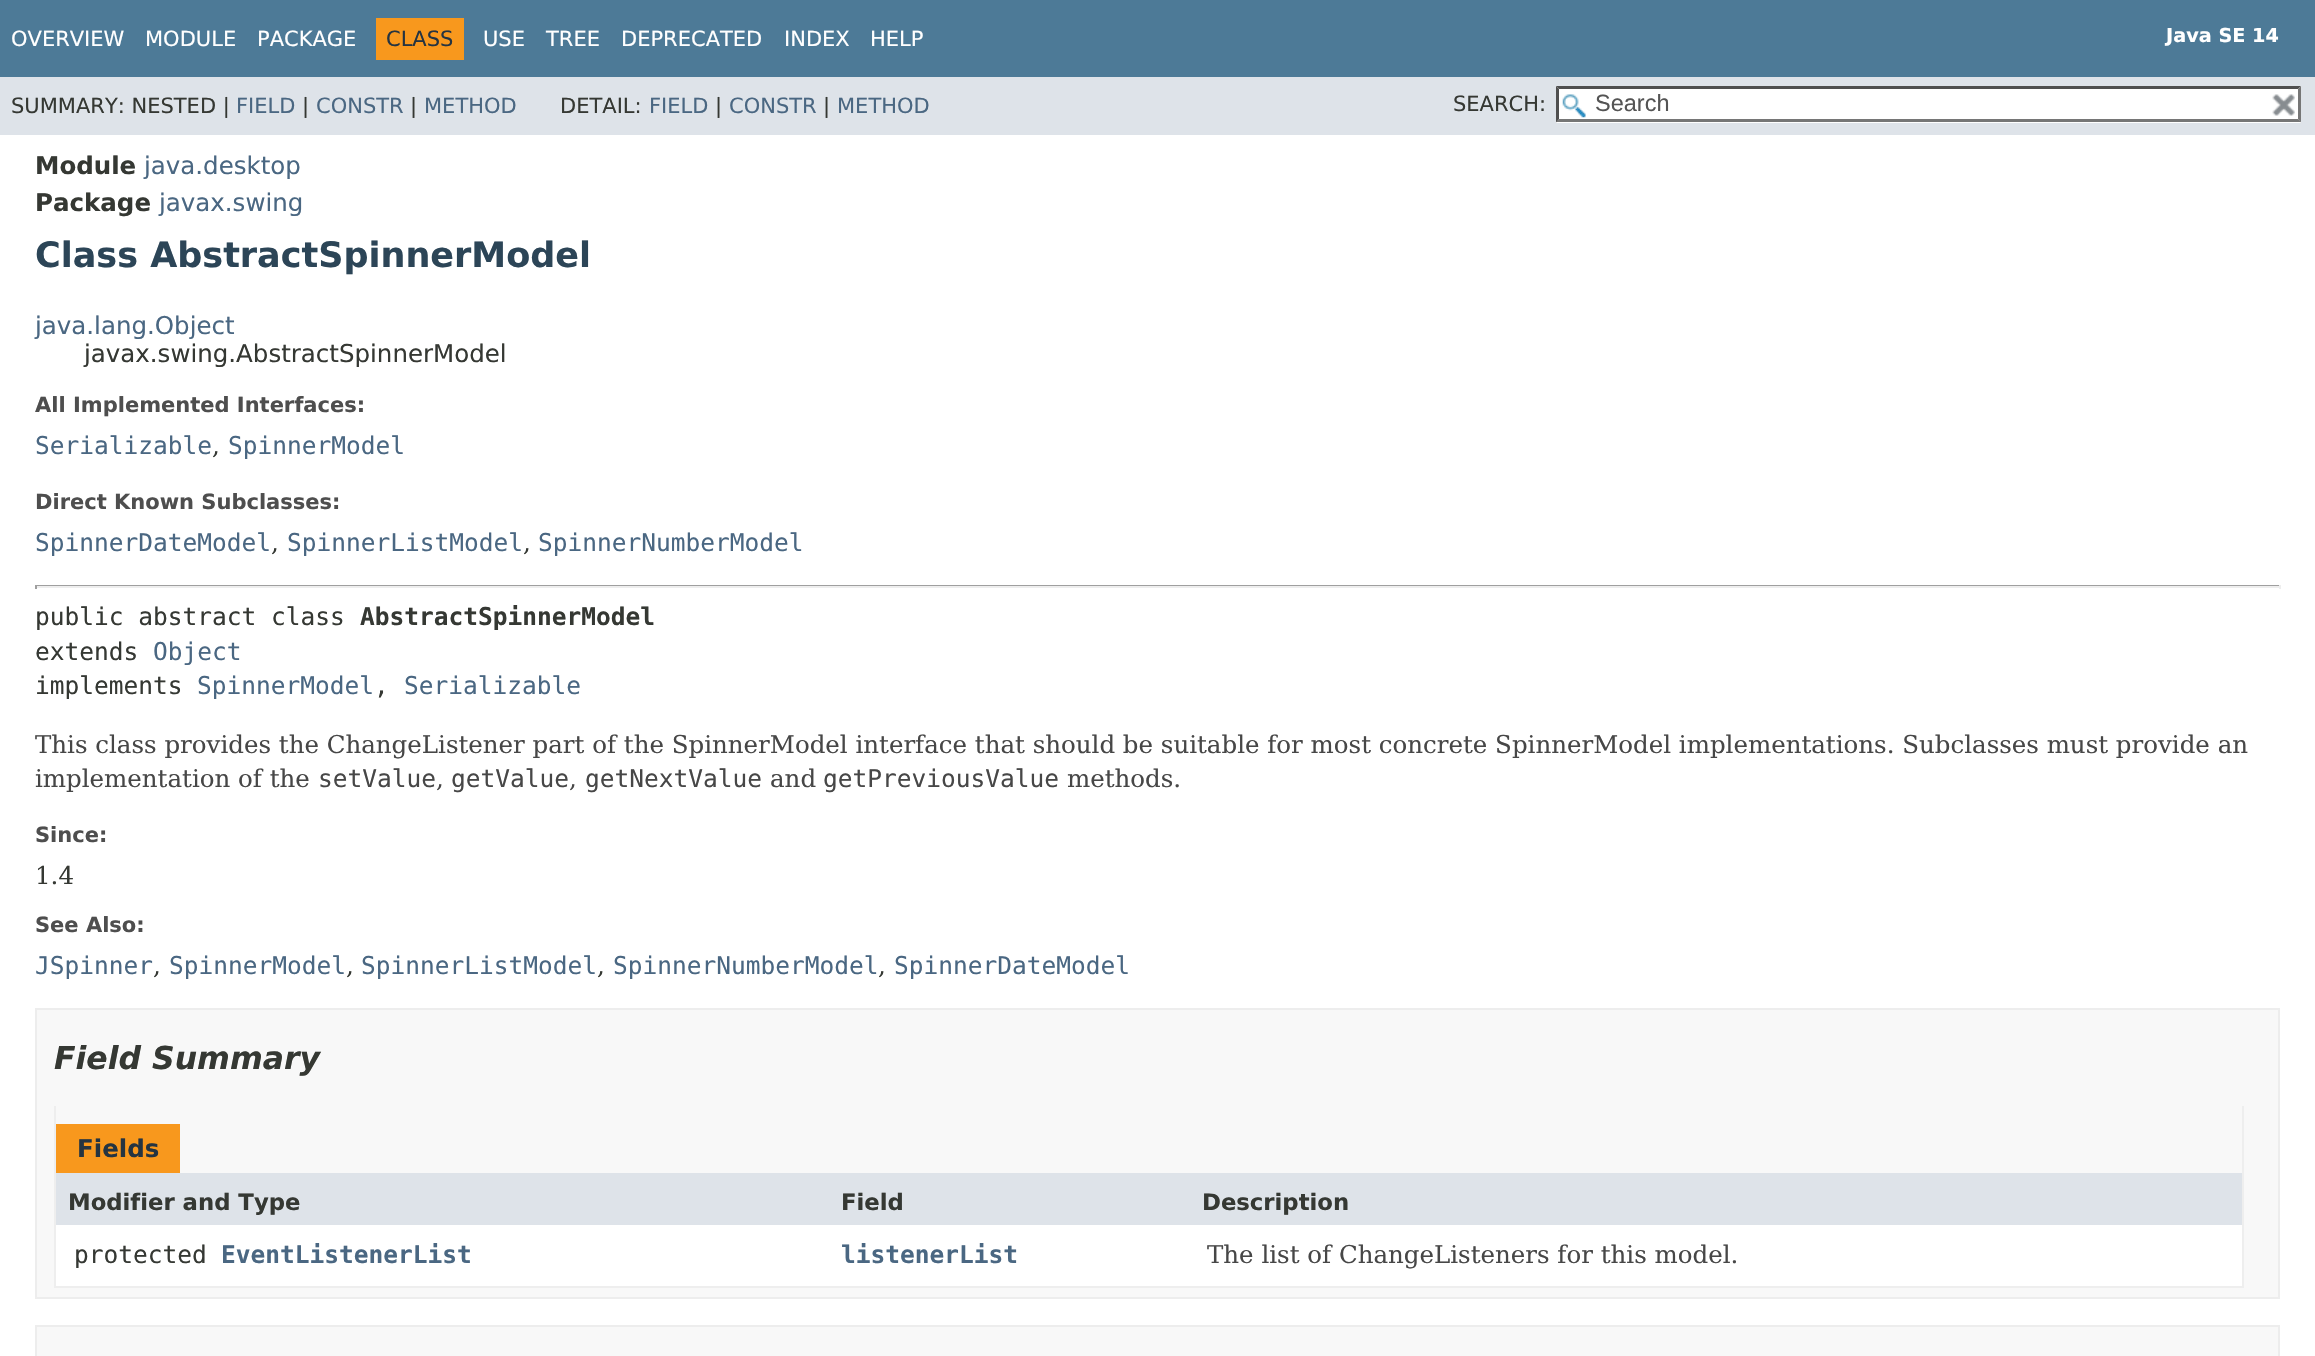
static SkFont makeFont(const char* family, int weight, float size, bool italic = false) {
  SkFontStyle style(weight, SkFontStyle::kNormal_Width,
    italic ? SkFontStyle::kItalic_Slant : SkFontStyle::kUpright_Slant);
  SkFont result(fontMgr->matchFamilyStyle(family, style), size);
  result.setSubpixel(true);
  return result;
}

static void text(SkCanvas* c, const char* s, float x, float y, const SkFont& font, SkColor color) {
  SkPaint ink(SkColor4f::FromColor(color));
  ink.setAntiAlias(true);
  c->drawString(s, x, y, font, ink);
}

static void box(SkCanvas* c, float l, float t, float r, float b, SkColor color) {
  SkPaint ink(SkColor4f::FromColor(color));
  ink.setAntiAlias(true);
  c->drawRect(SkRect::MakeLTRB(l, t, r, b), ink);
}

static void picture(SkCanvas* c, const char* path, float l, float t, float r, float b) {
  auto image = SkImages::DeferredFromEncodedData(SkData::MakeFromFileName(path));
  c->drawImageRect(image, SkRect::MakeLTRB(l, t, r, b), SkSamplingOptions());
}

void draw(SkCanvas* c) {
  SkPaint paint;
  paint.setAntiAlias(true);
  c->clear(0xffffffff);
  box(c, 0, 0, 2315, 77, 0xff4d7a97);
  SkFont face1 = makeFont("DejaVu Sans", 400, 21);
  text(c, "OVERVIEW", 11, 46, face1, 0xffffffff);
  text(c, "MODULE", 145, 46, face1, 0xffffffff);
  text(c, "PACKAGE", 257, 46, face1, 0xffffffff);
  box(c, 376, 18, 464, 60, 0xfff8981d);
  text(c, "CLASS", 386, 46, face1, 0xff253441);
  text(c, "USE", 483, 46, face1, 0xffffffff);
  text(c, "TREE", 546, 46, face1, 0xffffffff);
  text(c, "DEPRECATED", 621, 46, face1, 0xffffffff);
  text(c, "INDEX", 784, 46, face1, 0xffffffff);
  text(c, "HELP", 870, 46, face1, 0xffffffff);
  SkFont face2 = makeFont("DejaVu Sans", 700, 19.25f);
  text(c, "Java SE 14", 2166, 42, face2, 0xffffffff);
  box(c, 0, 77, 2315, 135, 0xffdee3e9);
  text(c, "SUMMARY: NESTED |", 11, 113, face1, 0xff353833);
  text(c, "FIELD", 236, 113, face1, 0xff4a6782);
  text(c, "|", 302, 113, face1, 0xff353833);
  text(c, "CONSTR", 316, 113, face1, 0xff4a6782);
  text(c, "|", 410, 113, face1, 0xff353833);
  text(c, "METHOD", 424, 113, face1, 0xff4a6782);
  text(c, "DETAIL:", 560, 113, face1, 0xff353833);
  text(c, "FIELD", 649, 113, face1, 0xff4a6782);
  text(c, "|", 715, 113, face1, 0xff353833);
  text(c, "CONSTR", 729, 113, face1, 0xff4a6782);
  text(c, "|", 823, 113, face1, 0xff353833);
  text(c, "METHOD", 837, 113, face1, 0xff4a6782);
  text(c, "SEARCH:", 1453, 111, face1, 0xff353833);
  box(c, 1556, 86, 2301, 123, 0xffffffff);
  picture(c, "img_01.png", 1562, 94, 1586, 118);
  paint.setColor(0xff4f4f4f);
  c->drawPath(SkPathBuilder().moveTo(1556, 86).lineTo(2301, 86).lineTo(2298, 89).lineTo(1559, 89).close().detach(), paint);
  paint.setColor(0xff767676);
  c->drawPath(SkPathBuilder().moveTo(2301, 86).lineTo(2301, 122.5f).lineTo(2298, 119).lineTo(2298, 89).close().detach(), paint);
  c->drawPath(SkPathBuilder().moveTo(2301, 122).lineTo(1556, 122).lineTo(1559, 119).lineTo(2298, 119).close().detach(), paint);
  paint.setColor(0xff4f4f4f);
  c->drawPath(SkPathBuilder().moveTo(1556, 122.5f).lineTo(1556, 86).lineTo(1559, 89).lineTo(1559, 119).close().detach(), paint);
  SkFont face3 = makeFont("Liberation Sans", 400, 23.5f);
  text(c, "Search", 1595, 111, face3, 0xff545454);
  picture(c, "img_02.png", 2272, 94, 2295, 116);
  SkFont face4 = makeFont("DejaVu Sans", 700, 24.5f);
  text(c, "Module", 35, 174, face4, 0xff353833);
  SkFont face5 = makeFont("DejaVu Sans", 400, 24.5f);
  text(c, "java.desktop", 144, 174, face5, 0xff4a6782);
  text(c, "Package", 35, 211, face4, 0xff353833);
  text(c, "javax.swing", 159, 211, face5, 0xff4a6782);
  SkFont face6 = makeFont("DejaVu Sans", 700, 35);
  text(c, "Class AbstractSpinnerModel", 35, 267, face6, 0xff2c4557);
  text(c, "java.lang.Object", 35, 334, face5, 0xff4a6782);
  text(c, "javax.swing.AbstractSpinnerModel", 84, 362, face5, 0xff353833);
  SkFont face7 = makeFont("DejaVu Sans", 700, 21);
  text(c, "All Implemented Interfaces:", 35, 412, face7, 0xff4e4e4e);
  SkFont face8 = makeFont("DejaVu Sans Mono", 400, 24.5f);
  text(c, "Serializable", 35, 454, face8, 0xff4a6782);
  SkFont face9 = makeFont("DejaVu Serif", 400, 24.5f);
  text(c, ",", 212, 454, face9, 0xff353833);
  text(c, "SpinnerModel", 228, 454, face8, 0xff4a6782);
  text(c, "Direct Known Subclasses:", 35, 509, face7, 0xff4e4e4e);
  text(c, "SpinnerDateModel", 35, 551, face8, 0xff4a6782);
  text(c, ",", 271, 551, face9, 0xff353833);
  text(c, "SpinnerListModel", 287, 551, face8, 0xff4a6782);
  text(c, ",", 523, 551, face9, 0xff353833);
  text(c, "SpinnerNumberModel", 538, 551, face8, 0xff4a6782);
  box(c, 35, 585, 2280, 586, 0xff9f9f9f);
  box(c, 2279, 585, 2281, 589, 0xffeeeeee);
  box(c, 35, 586, 2280, 588, 0xffeeeeee);
  box(c, 35, 585, 37, 589, 0xff9f9f9f);
  text(c, "public abstract class", 35, 625, face8, 0xff353833);
  SkFont face10 = makeFont("DejaVu Sans Mono", 700, 24.5f);
  text(c, "AbstractSpinnerModel", 360, 625, face10, 0xff353833);
  text(c, "extends", 35, 660, face8, 0xff353833);
  text(c, "Object", 153, 660, face8, 0xff4a6782);
  text(c, "implements", 35, 694, face8, 0xff353833);
  text(c, "SpinnerModel", 197, 694, face8, 0xff4a6782);
  text(c, ",", 374, 694, face8, 0xff353833);
  text(c, "Serializable", 404, 694, face8, 0xff4a6782);
  text(c, "This class provides the ChangeListener part of the SpinnerModel interface that should be suitable for most concrete SpinnerModel implementations. Subclasses must provide an", 35, 753, face9, 0xff474747);
  text(c, "implementation of the", 35, 787, face9, 0xff474747);
  text(c, "setValue", 318, 787, face8, 0xff474747);
  text(c, ",", 436, 787, face9, 0xff474747);
  text(c, "getValue", 451, 787, face8, 0xff474747);
  text(c, ",", 569, 787, face9, 0xff474747);
  text(c, "getNextValue", 585, 787, face8, 0xff474747);
  text(c, "and", 770, 787, face9, 0xff474747);
  text(c, "getPreviousValue", 823, 787, face8, 0xff474747);
  text(c, "methods.", 1067, 787, face9, 0xff474747);
  text(c, "Since:", 35, 842, face7, 0xff4e4e4e);
  text(c, "1.4", 35, 884, face9, 0xff353833);
  text(c, "See Also:", 35, 932, face7, 0xff4e4e4e);
  text(c, "JSpinner", 35, 974, face8, 0xff4a6782);
  text(c, ",", 153, 974, face9, 0xff353833);
  text(c, "SpinnerModel", 169, 974, face8, 0xff4a6782);
  text(c, ",", 346, 974, face9, 0xff353833);
  text(c, "SpinnerListModel", 361, 974, face8, 0xff4a6782);
  text(c, ",", 597, 974, face9, 0xff353833);
  text(c, "SpinnerNumberModel", 613, 974, face8, 0xff4a6782);
  text(c, ",", 878, 974, face9, 0xff353833);
  text(c, "SpinnerDateModel", 894, 974, face8, 0xff4a6782);
  paint.setColor(0xfff8f8f8);
  c->drawRect(SkRect::MakeLTRB(36, 1009, 2279, 1298), paint);
  paint.setStyle(SkPaint::kStroke_Style);
  paint.setStrokeWidth(2);
  paint.setColor(0xffededed);
  c->drawRect(SkRect::MakeLTRB(36, 1009, 2279, 1298), paint);
  SkFont face11 = makeFont("DejaVu Sans", 700, 31.5f, true);
  text(c, "Field Summary", 54, 1069, face11, 0xff353833);
  box(c, 2242, 1106, 2244, 1288, 0xffeeeeee);
  box(c, 54, 1286, 2244, 1288, 0xffeeeeee);
  box(c, 54, 1106, 56, 1288, 0xffeeeeee);
  box(c, 56, 1124, 180, 1173, 0xfff8981d);
  text(c, "Fields", 77, 1157, face4, 0xff253441);
  box(c, 56, 1173, 2242, 1225, 0xffdee3e9);
  SkFont face12 = makeFont("DejaVu Sans", 700, 22.75f);
  text(c, "Modifier and Type", 68, 1210, face12, 0xff353833);
  text(c, "Field", 841, 1210, face12, 0xff353833);
  text(c, "Description", 1202, 1210, face12, 0xff353833);
  box(c, 56, 1225, 2242, 1286, 0xffffffff);
  text(c, "protected", 74, 1263, face8, 0xff353833);
  text(c, "EventListenerList", 221, 1263, face10, 0xff4a6782);
  text(c, "listenerList", 841, 1263, face10, 0xff4a6782);
  text(c, "The list of ChangeListeners for this model.", 1207, 1263, face9, 0xff474747);
  paint.setStyle(SkPaint::kFill_Style);
  paint.setColor(0xfff8f8f8);
  c->drawRect(SkRect::MakeLTRB(36, 1326, 2279, 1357), paint);
  paint.setStyle(SkPaint::kStroke_Style);
  paint.setColor(0xffededed);
  c->drawRect(SkRect::MakeLTRB(36, 1326, 2279, 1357), paint);
}
